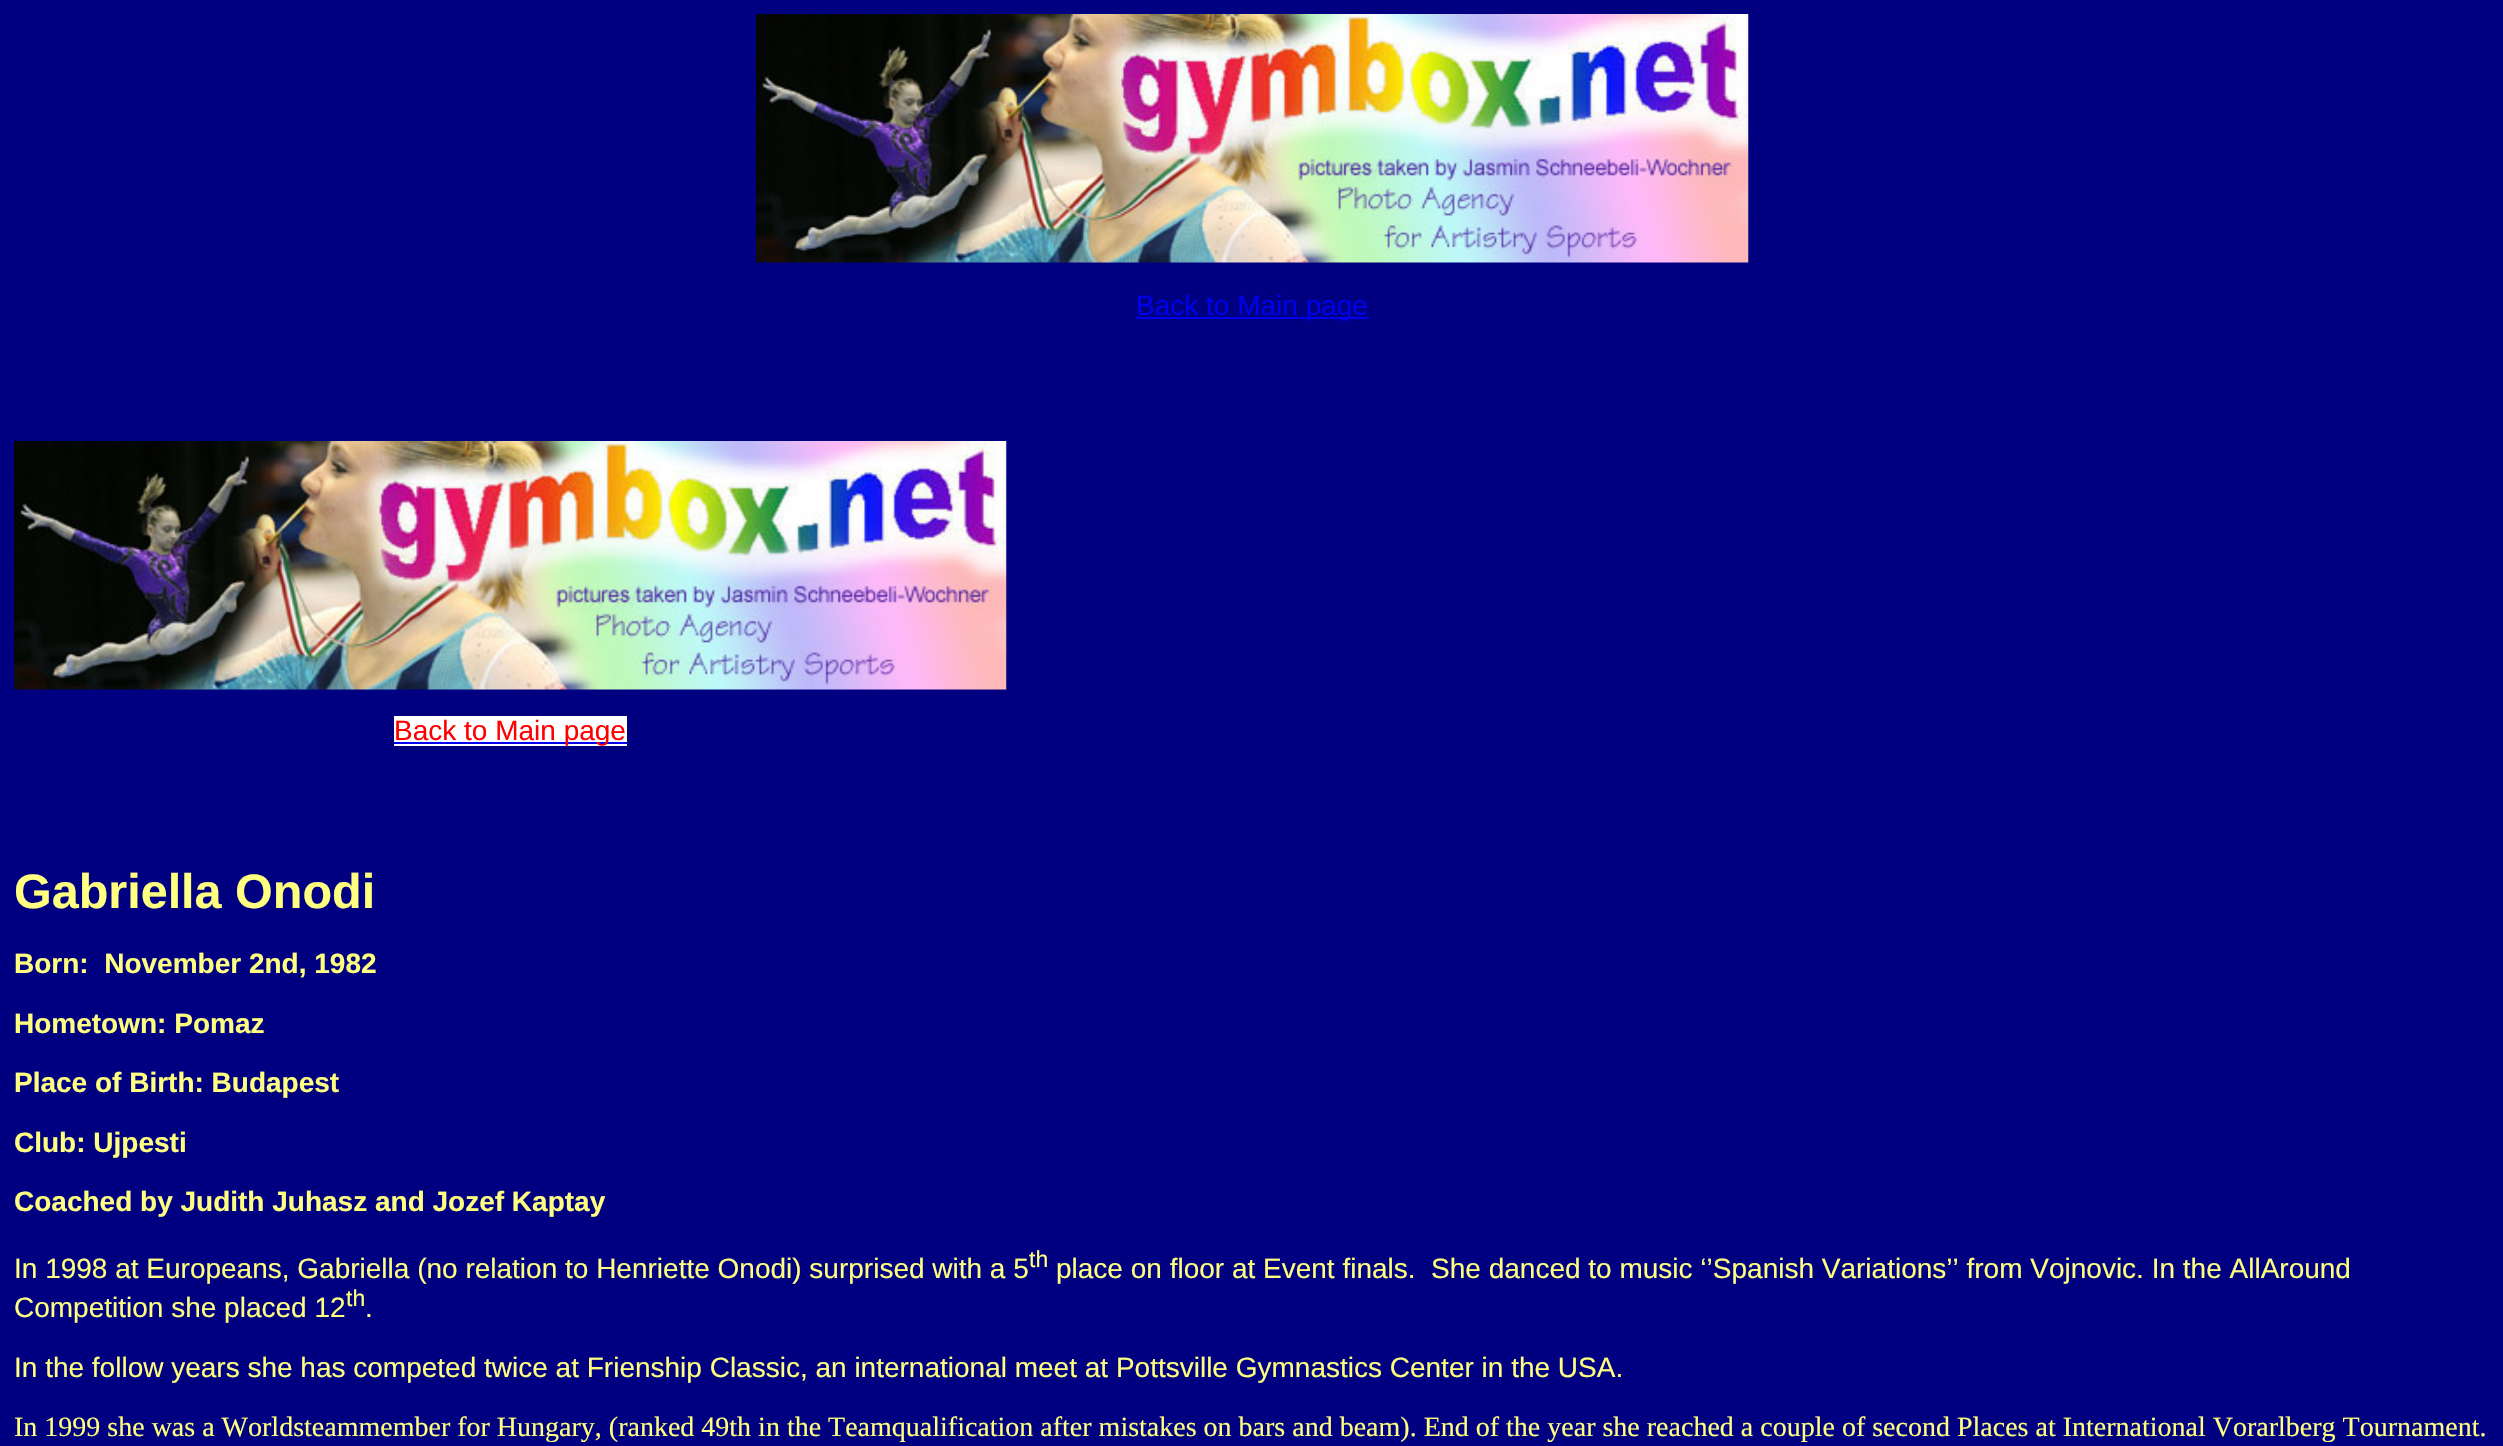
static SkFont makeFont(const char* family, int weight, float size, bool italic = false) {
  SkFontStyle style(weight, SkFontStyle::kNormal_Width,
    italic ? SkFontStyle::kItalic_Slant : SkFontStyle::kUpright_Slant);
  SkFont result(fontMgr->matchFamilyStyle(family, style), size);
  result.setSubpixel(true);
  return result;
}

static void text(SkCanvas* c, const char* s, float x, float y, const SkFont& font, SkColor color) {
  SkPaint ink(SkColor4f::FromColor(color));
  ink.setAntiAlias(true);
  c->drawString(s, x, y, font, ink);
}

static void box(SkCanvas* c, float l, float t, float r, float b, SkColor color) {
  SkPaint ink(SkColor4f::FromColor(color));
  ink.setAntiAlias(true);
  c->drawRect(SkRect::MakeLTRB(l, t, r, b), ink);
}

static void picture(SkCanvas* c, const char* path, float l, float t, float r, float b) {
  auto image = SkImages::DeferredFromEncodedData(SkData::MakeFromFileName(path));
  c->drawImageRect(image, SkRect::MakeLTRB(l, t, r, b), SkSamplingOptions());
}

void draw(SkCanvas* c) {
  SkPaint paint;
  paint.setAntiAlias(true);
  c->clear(0xff000080);
  picture(c, "img_01.png", 756, 14, 1749, 263);
  box(c, 1136, 317, 1369, 319, 0xff0000ee);
  SkFont face1 = makeFont("Liberation Sans", 400, 28);
  text(c, "Back to Main page", 1136, 315, face1, 0xff0000ee);
  picture(c, "img_02.png", 14, 441, 1007, 690);
  box(c, 394, 716, 627, 746, 0xffffffff);
  box(c, 394, 742, 627, 744, 0xff0000ee);
  text(c, "Back to Main page", 394, 740, face1, 0xffff0000);
  SkFont face2 = makeFont("Liberation Sans", 700, 48.5f);
  text(c, "Gabriella Onodi", 14, 908, face2, 0xffffff80);
  SkFont face3 = makeFont("Liberation Sans", 700, 28);
  text(c, "Born:  November 2nd, 1982", 14, 973, face3, 0xffffff80);
  text(c, "Hometown: Pomaz", 14, 1033, face3, 0xffffff80);
  text(c, "Place of Birth: Budapest", 14, 1092, face3, 0xffffff80);
  text(c, "Club: Ujpesti", 14, 1152, face3, 0xffffff80);
  text(c, "Coached by Judith Juhasz and Jozef Kaptay", 14, 1211, face3, 0xffffff80);
  text(c, "In 1998 at Europeans, Gabriella (no relation to Henriette Onodi) surprised with a 5", 14, 1278, face1, 0xffffff80);
  SkFont face4 = makeFont("Liberation Sans", 400, 23);
  text(c, "th", 1029, 1267, face4, 0xffffff80);
  text(c, "place on floor at Event finals.  She danced to music ‘’Spanish Variations’’ from Vojnovic. In the AllAround", 1056, 1278, face1, 0xffffff80);
  text(c, "Competition she placed 12", 14, 1317, face1, 0xffffff80);
  text(c, "th", 346, 1306, face4, 0xffffff80);
  text(c, ".", 365, 1317, face1, 0xffffff80);
  text(c, "In the follow years she has competed twice at Frienship Classic, an international meet at Pottsville Gymnastics Center in the USA.", 14, 1377, face1, 0xffffff80);
  SkFont face5 = makeFont("Liberation Serif", 400, 28);
  text(c, "In 1999 she was a Worldsteammember for Hungary, (ranked 49th in the Teamqualification after mistakes on bars and beam). End of the year she reached a couple of second Places at International Vorarlberg Tournament.", 14, 1436, face5, 0xffffff80);
}
